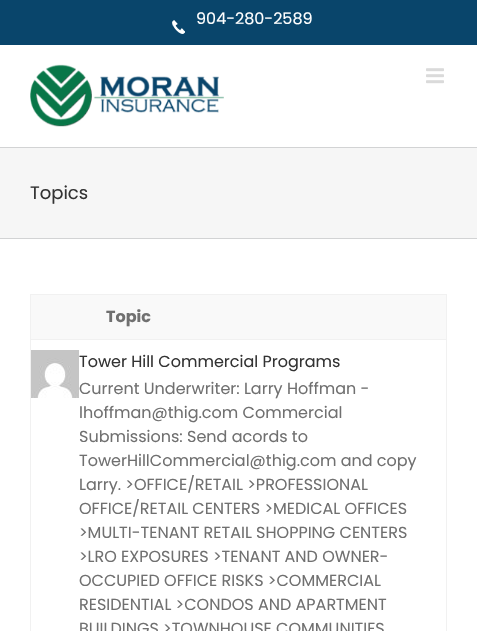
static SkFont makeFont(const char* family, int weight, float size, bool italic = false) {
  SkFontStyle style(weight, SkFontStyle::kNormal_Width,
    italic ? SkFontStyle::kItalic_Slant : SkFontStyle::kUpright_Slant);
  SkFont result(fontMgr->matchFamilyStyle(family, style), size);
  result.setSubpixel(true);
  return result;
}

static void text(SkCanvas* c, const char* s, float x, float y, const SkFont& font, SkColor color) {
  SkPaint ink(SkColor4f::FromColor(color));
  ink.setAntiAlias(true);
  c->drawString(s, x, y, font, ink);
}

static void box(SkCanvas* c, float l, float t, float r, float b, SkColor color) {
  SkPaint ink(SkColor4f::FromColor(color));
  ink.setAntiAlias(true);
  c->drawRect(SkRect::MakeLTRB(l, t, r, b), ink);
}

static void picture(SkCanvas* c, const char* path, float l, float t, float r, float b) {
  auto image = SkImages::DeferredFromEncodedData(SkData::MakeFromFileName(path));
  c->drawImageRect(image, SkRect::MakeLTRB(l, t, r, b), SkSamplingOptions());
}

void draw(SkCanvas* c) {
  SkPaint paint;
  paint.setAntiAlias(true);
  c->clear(0xffffffff);
  box(c, 0, 0, 477, 45, 0xff09456b);
  SkFont face1 = makeFont("Poppins", 400, 16);
  text(c, "904-280-2589", 196, 24, face1, 0xffffffff);
  picture(c, "img_01.png", 172, 20, 185, 34);
  picture(c, "img_02.png", 30, 64, 224, 127);
  picture(c, "img_03.png", 426, 68, 444, 84);
  box(c, 0, 148, 477, 238, 0xfff6f6f6);
  box(c, 0, 147, 477, 148, 0xffd2d3d4);
  box(c, 0, 238, 477, 239, 0xffd2d3d4);
  SkFont face2 = makeFont("Poppins", 400, 18);
  text(c, "Topics", 30, 199, face2, 0xff333333);
  paint.setStyle(SkPaint::kStroke_Style);
  paint.setStrokeWidth(1);
  paint.setColor(0xfff1f1f1);
  c->drawRect(SkRect::MakeLTRB(30.5f, 294.5f, 446.5f, 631.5f), paint);
  box(c, 31, 295, 446, 339, 0xfff9f9f9);
  SkFont face3 = makeFont("Poppins", 700, 16);
  text(c, "Topic", 106, 322, face3, 0xff707070);
  box(c, 31, 339, 446, 340, 0xfff1f1f1);
  picture(c, "img_04.png", 31, 350, 79, 398);
  text(c, "Tower Hill Commercial Programs", 79, 367, face1, 0xff333333);
  text(c, "Current Underwriter: Larry Hoffman -", 79, 394, face1, 0xff707070);
  text(c, "lhoffman@thig.com Commercial", 79, 418, face1, 0xff707070);
  text(c, "Submissions: Send acords to", 79, 442, face1, 0xff707070);
  text(c, "TowerHillCommercial@thig.com and copy", 79, 466, face1, 0xff707070);
  text(c, "Larry. >OFFICE/RETAIL >PROFESSIONAL", 79, 490, face1, 0xff707070);
  text(c, "OFFICE/RETAIL CENTERS >MEDICAL OFFICES", 79, 514, face1, 0xff707070);
  text(c, ">MULTI-TENANT RETAIL SHOPPING CENTERS", 79, 538, face1, 0xff707070);
  text(c, ">LRO EXPOSURES >TENANT AND OWNER-", 79, 562, face1, 0xff707070);
  text(c, "OCCUPIED OFFICE RISKS >COMMERCIAL", 79, 586, face1, 0xff707070);
  text(c, "RESIDENTIAL >CONDOS AND APARTMENT", 79, 610, face1, 0xff707070);
  text(c, "BUILDINGS >TOWNHOUSE COMMUNITIES", 79, 634, face1, 0xff707070);
}
